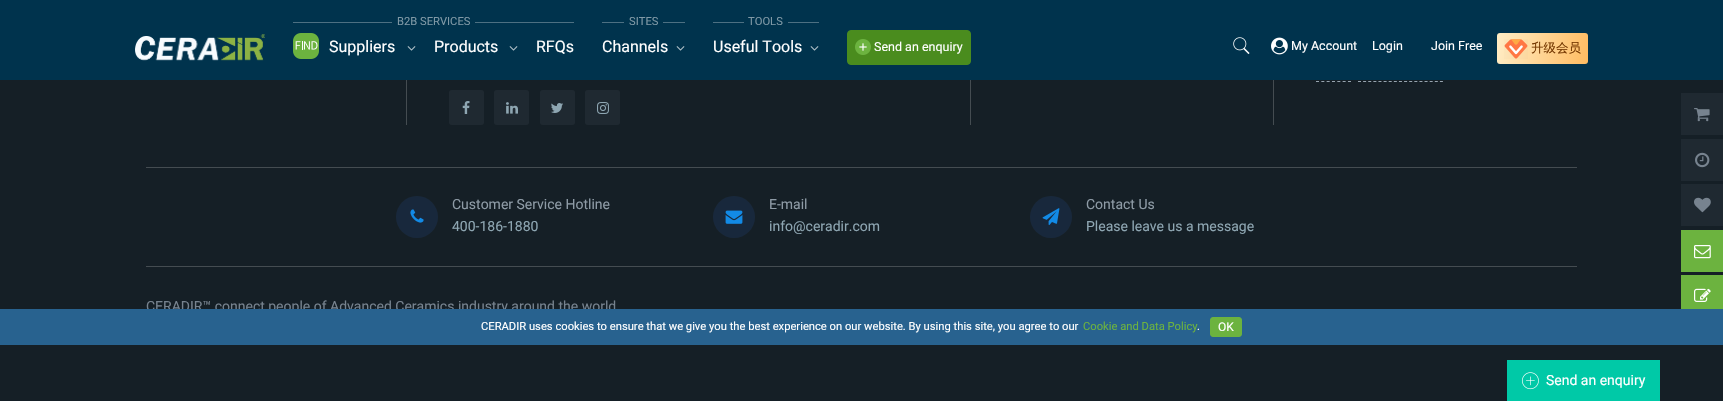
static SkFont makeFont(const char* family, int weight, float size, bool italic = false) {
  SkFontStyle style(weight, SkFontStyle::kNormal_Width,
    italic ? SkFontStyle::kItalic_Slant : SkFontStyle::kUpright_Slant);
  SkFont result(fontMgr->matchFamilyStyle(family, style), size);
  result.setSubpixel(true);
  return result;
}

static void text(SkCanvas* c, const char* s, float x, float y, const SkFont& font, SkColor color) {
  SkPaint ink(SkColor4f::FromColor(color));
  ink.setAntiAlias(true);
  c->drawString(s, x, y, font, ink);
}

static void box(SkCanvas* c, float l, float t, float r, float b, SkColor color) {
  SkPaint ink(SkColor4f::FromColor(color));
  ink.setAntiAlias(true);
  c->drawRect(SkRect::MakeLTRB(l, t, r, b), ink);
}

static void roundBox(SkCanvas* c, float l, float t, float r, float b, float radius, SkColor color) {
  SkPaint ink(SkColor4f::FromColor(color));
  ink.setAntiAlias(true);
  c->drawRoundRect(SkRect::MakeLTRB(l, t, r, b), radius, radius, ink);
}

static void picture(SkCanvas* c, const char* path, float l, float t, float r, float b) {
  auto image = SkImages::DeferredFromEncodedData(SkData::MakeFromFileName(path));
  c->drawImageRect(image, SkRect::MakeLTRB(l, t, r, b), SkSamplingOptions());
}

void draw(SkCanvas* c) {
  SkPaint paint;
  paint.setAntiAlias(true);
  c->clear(0xff151f26);
  box(c, 0, 0, 1723, 80, 0xff00334d);
  picture(c, "img_01.png", 135, 34, 265, 61);
  box(c, 293, 22, 392, 23, 0xff4d7082);
  SkFont face1 = makeFont("Roboto", 400, 11.2f);
  text(c, "B2B SERVICES", 397, 25, face1, 0xff8099a6);
  box(c, 475, 22, 574, 23, 0xff4d7082);
  picture(c, "img_02.png", 293, 33, 319, 59);
  SkFont face2 = makeFont("Roboto", 400, 16);
  text(c, "Suppliers", 329, 52, face2, 0xffffffff);
  picture(c, "img_03.png", 407, 46, 416, 51);
  text(c, "Products", 434, 52, face2, 0xffffffff);
  picture(c, "img_03.png", 509, 46, 518, 51);
  text(c, "RFQs", 536, 52, face2, 0xffffffff);
  box(c, 602, 22, 624, 23, 0xff4d7082);
  text(c, "SITES", 629, 25, face1, 0xff8099a6);
  box(c, 663, 22, 685, 23, 0xff4d7082);
  text(c, "Channels", 602, 52, face2, 0xffffffff);
  picture(c, "img_03.png", 676, 46, 685, 51);
  box(c, 713, 22, 744, 23, 0xff4d7082);
  text(c, "TOOLS", 748, 25, face1, 0xff8099a6);
  box(c, 788, 22, 819, 23, 0xff4d7082);
  text(c, "Useful Tools", 713, 52, face2, 0xffffffff);
  picture(c, "img_03.png", 810, 46, 819, 51);
  paint.setColor(0xff4a8c1e);
  c->drawRoundRect(SkRect::MakeLTRB(847.5f, 30.5f, 970.5f, 64.5f), 3.5f, 3.5f, paint);
  paint.setStyle(SkPaint::kStroke_Style);
  paint.setStrokeWidth(1);
  c->drawRoundRect(SkRect::MakeLTRB(847.5f, 30.5f, 970.5f, 64.5f), 3.5f, 3.5f, paint);
  picture(c, "img_04.png", 855, 39, 871, 55);
  SkFont face3 = makeFont("Roboto", 400, 12.5f);
  text(c, "Send an enquiry", 874, 51, face3, 0xffffffff);
  picture(c, "img_05.png", 1233, 37, 1250, 54);
  picture(c, "img_06.png", 1271, 37, 1288, 55);
  text(c, "My Account", 1291, 50, face3, 0xffffffff);
  text(c, "Login", 1372, 50, face3, 0xffffffff);
  text(c, "Join Free", 1431, 50, face3, 0xffffffff);
  paint.setStyle(SkPaint::kFill_Style);
  {
    const SkColor colors[] = {0xffffedc5, 0xffffbc62};
    const float stops[] = {0, 1};
    const SkPoint ends[] = {{1496, 41}, {1589, 56}};
    paint.setShader(SkGradientShader::MakeLinear(ends, colors, stops, 2, SkTileMode::kClamp));
    paint.setAlpha(255);
  }
  c->drawRoundRect(SkRect::MakeLTRB(1497, 33, 1588, 64), 3, 3, paint);
  picture(c, "img_07.png", 1504, 39, 1528, 59);
  SkFont face4 = makeFont("WenQuanYi Zen Hei", 500, 12.5f);
  text(c, "升级会员", 1531, 52, face4, 0xff743700);
  box(c, 406, 80, 407, 125, 0xff444c51);
  box(c, 970, 80, 971, 125, 0xff444c51);
  roundBox(c, 449, 90, 484, 125, 3, 0xff1f2931);
  picture(c, "img_08.png", 462, 101, 470, 114);
  roundBox(c, 494, 90, 529, 125, 3, 0xff1f2931);
  picture(c, "img_09.png", 506, 102, 518, 114);
  roundBox(c, 540, 90, 575, 125, 3, 0xff1f2931);
  picture(c, "img_10.png", 551, 103, 563, 113);
  roundBox(c, 585, 90, 620, 125, 3, 0xff1f2931);
  picture(c, "img_11.png", 597, 102, 609, 114);
  box(c, 1273, 80, 1274, 125, 0xff444c51);
  paint.setStyle(SkPaint::kStroke_Style);
  paint.setShader(nullptr);
  paint.setColor(0xff97a4af);
  paint.setPathEffect(SkDashPathEffect::Make({{3, 2.33f}}, 0));
  c->drawPath(SkPathBuilder().moveTo(1316, 81.5f).lineTo(1351, 81.5f).detach(), paint);
  paint.setPathEffect(nullptr);
  paint.setPathEffect(SkDashPathEffect::Make({{3, 2.12f}}, 0));
  c->drawPath(SkPathBuilder().moveTo(1358, 81.5f).lineTo(1443, 81.5f).detach(), paint);
  paint.setPathEffect(nullptr);
  box(c, 146, 167, 1577, 168, 0xff444c51);
  paint.setStyle(SkPaint::kFill_Style);
  paint.setColor(0xff18283c);
  c->drawCircle(417, 217, 21, paint);
  picture(c, "img_12.png", 410, 209, 424, 223);
  SkFont face5 = makeFont("Roboto", 400, 14);
  text(c, "Customer Service Hotline", 452, 209, face5, 0xff8e9ba6);
  text(c, "400-186-1880", 452, 231, face5, 0xff8ea6b2);
  c->drawCircle(734, 217, 21, paint);
  picture(c, "img_13.png", 725, 210, 743, 224);
  text(c, "E-mail", 769, 209, face5, 0xff8e9ba6);
  text(c, "info@ceradir.com", 769, 231, face5, 0xff8ea6b2);
  c->drawCircle(1051, 217, 21, paint);
  picture(c, "img_14.png", 1042, 208, 1060, 225);
  text(c, "Contact Us", 1086, 209, face5, 0xff8e9ba6);
  text(c, "Please leave us a message", 1086, 231, face5, 0xff8ea6b2);
  box(c, 146, 266, 1577, 267, 0xff444c51);
  text(c, "CERADIR™ connect people of Advanced Ceramics industry around the world", 146, 311, face5, 0xff77838f);
  box(c, 1681, 93, 1723, 135, 0xff1f2931);
  picture(c, "img_15.png", 1694, 108, 1710, 122);
  box(c, 1681, 139, 1723, 181, 0xff1f2931);
  picture(c, "img_16.png", 1695, 152, 1710, 168);
  box(c, 1681, 184, 1723, 226, 0xff1f2931);
  picture(c, "img_17.png", 1694, 197, 1711, 213);
  box(c, 1681, 230, 1723, 272, 0xff6cb33f);
  picture(c, "img_18.png", 1694, 245, 1711, 259);
  box(c, 1681, 275, 1723, 309, 0xff6cb33f);
  picture(c, "img_19.png", 1694, 288, 1711, 302);
  box(c, 0, 309, 1723, 345, 0xff28628f);
  text(c, "CERADIR uses cookies to ensure that we give you the best experience on our website. By using this site, you agree to our", 481, 330, face1, 0xffffffff);
  text(c, "Cookie and Data Policy", 1083, 330, face1, 0xff6cb33f);
  text(c, ".", 1197, 330, face1, 0xffffffff);
  paint.setColor(0xff6cb33f);
  c->drawRoundRect(SkRect::MakeLTRB(1210.5f, 317.5f, 1241.5f, 336.5f), 2.5f, 2.5f, paint);
  paint.setStyle(SkPaint::kStroke_Style);
  c->drawRoundRect(SkRect::MakeLTRB(1210.5f, 317.5f, 1241.5f, 336.5f), 2.5f, 2.5f, paint);
  SkFont face6 = makeFont("Roboto", 400, 12);
  text(c, "OK", 1218, 331, face6, 0xffffffff);
  box(c, 1507, 360, 1660, 401, 0xff00c9a7);
  picture(c, "img_20.png", 1522, 372, 1539, 390);
  text(c, "Send an enquiry", 1546, 385, face5, 0xffffffff);
}
